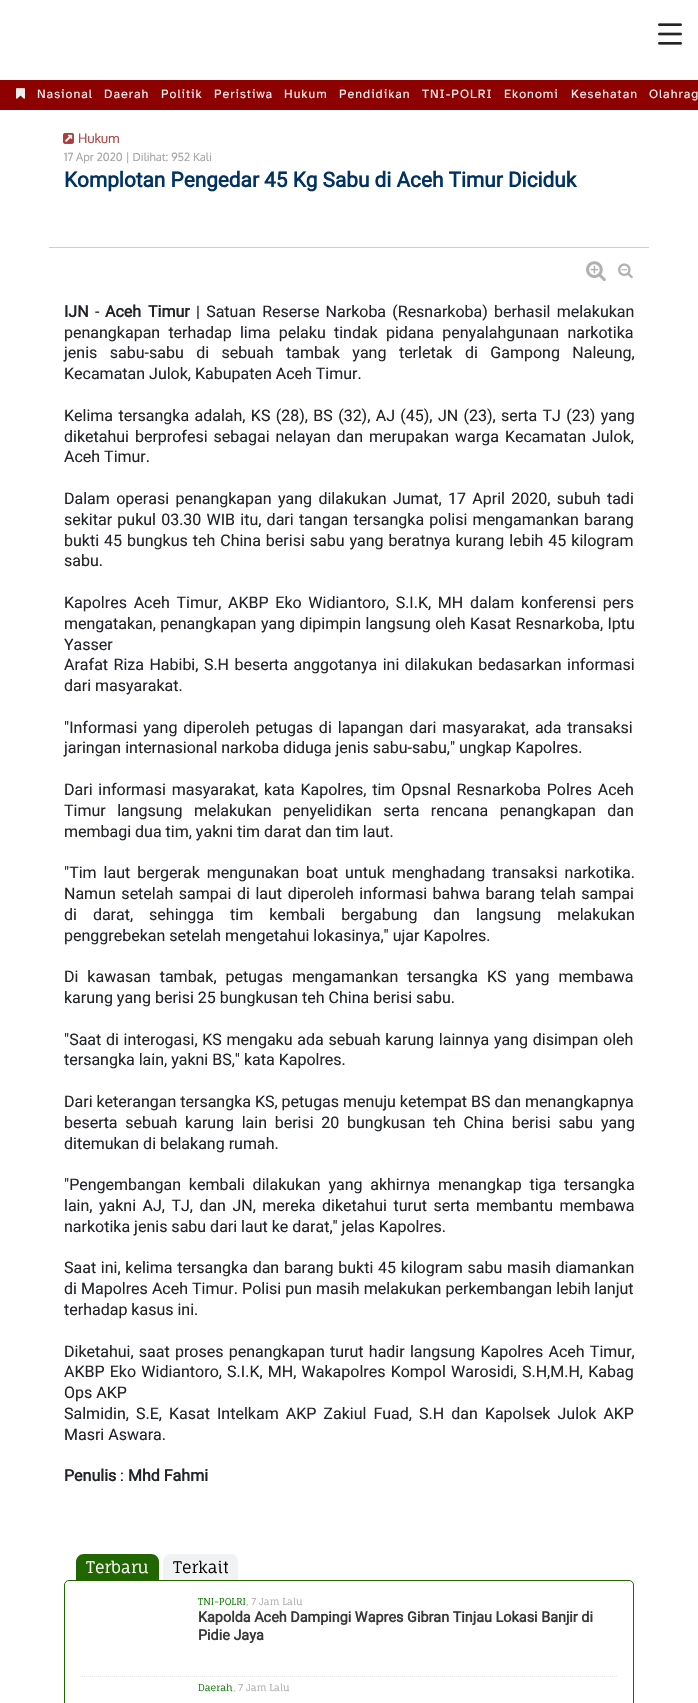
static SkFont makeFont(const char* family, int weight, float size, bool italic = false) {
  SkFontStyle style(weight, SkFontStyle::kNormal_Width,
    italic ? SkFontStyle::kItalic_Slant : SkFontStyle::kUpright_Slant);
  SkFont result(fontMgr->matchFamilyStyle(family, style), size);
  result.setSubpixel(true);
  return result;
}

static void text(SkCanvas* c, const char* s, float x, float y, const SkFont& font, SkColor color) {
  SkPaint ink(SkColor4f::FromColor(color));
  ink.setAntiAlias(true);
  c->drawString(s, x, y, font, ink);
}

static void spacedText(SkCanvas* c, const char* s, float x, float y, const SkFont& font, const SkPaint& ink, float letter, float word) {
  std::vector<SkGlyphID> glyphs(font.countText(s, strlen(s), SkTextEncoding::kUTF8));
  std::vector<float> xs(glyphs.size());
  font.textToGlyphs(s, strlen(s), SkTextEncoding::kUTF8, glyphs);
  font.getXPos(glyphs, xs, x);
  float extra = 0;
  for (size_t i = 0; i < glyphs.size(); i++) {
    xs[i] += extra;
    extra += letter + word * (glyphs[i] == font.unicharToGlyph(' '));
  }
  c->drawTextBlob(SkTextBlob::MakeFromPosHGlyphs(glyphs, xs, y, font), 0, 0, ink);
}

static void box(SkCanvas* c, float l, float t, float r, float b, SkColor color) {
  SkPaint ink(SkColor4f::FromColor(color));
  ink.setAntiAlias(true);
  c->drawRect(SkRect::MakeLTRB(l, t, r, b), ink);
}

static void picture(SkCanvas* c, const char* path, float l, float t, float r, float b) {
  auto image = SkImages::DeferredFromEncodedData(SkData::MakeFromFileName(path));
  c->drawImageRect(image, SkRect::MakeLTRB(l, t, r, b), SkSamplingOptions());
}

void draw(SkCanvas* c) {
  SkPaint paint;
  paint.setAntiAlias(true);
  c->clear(0xffffffff);
  picture(c, "img_01.png", 658, 23, 682, 45);
  box(c, 0, 80, 698, 110, 0xff8d0101);
  picture(c, "img_02.png", 16, 88, 25, 99);
  SkFont face1 = makeFont("Atkinson Hyperlegible", 400, 12.5f);
  paint.setColor(0xffeeeeee);
  spacedText(c, "Nasional", 37, 98, face1, paint, 1, 0);
  spacedText(c, "Daerah", 104, 98, face1, paint, 1, 0);
  spacedText(c, "Politik", 161, 98, face1, paint, 1, 0);
  spacedText(c, "Peristiwa", 214, 98, face1, paint, 1, 0);
  spacedText(c, "Hukum", 284, 98, face1, paint, 1, 0);
  spacedText(c, "Pendidikan", 339, 98, face1, paint, 1, 0);
  spacedText(c, "TNI-POLRI", 422, 98, face1, paint, 1, 0);
  spacedText(c, "Ekonomi", 504, 98, face1, paint, 1, 0);
  spacedText(c, "Kesehatan", 571, 98, face1, paint, 1, 0);
  spacedText(c, "Olahrag", 649, 98, face1, paint, 1, 0);
  picture(c, "img_03.png", 63, 132, 74, 144);
  SkFont face2 = makeFont("Oxygen", 400, 13);
  text(c, "Hukum", 78, 143, face2, 0xffaa3e3e);
  SkFont face3 = makeFont("Oxygen", 400, 11.25f);
  text(c, "17 Apr 2020 | Dilihat: 952 Kali", 64, 161, face3, 0xffa4a4a4);
  SkFont face4 = makeFont("Roboto", 700, 20.8f);
  text(c, "Komplotan Pengedar 45 Kg Sabu di Aceh Timur Diciduk", 64, 187, face4, 0xff003264);
  box(c, 49, 247, 649, 248, 0xffcccccc);
  picture(c, "img_04.png", 586, 261, 606, 281);
  picture(c, "img_05.png", 618, 263, 633, 279);
  SkFont face5 = makeFont("Roboto", 700, 16);
  text(c, "IJN", 64, 317, face5, 0xff212529);
  SkFont face6 = makeFont("Roboto", 400, 16);
  text(c, "-", 95, 317, face6, 0xff212529);
  text(c, "Aceh", 105, 317, face5, 0xff212529);
  text(c, "Timur", 148, 317, face5, 0xff212529);
  paint.setColor(0xff212529);
  spacedText(c, "| Satuan Reserse Narkoba (Resnarkoba) berhasil melakukan", 196, 317, face6, paint, 0, 2.25f);
  spacedText(c, "penangkapan terhadap lima pelaku tindak pidana penyalahgunaan narkotika", 64, 338, face6, paint, 0, 4.25f);
  spacedText(c, "jenis sabu-sabu di sebuah tambak yang terletak di Gampong Naleung,", 64, 358, face6, paint, 0, 8.5f);
  text(c, "Kecamatan Julok, Kabupaten Aceh Timur.", 64, 379, face6, 0xff212529);
  spacedText(c, "Kelima tersangka adalah, KS (28), BS (32), AJ (45), JN (23), serta TJ (23) yang", 64, 421, face6, paint, 0, 1.4f);
  spacedText(c, "diketahui berprofesi sebagai nelayan dan merupakan warga Kecamatan Julok,", 64, 442, face6, paint, 0, 2);
  text(c, "Aceh Timur.", 64, 462, face6, 0xff212529);
  spacedText(c, "Dalam operasi penangkapan yang dilakukan Jumat, 17 April 2020, subuh tadi", 64, 504, face6, paint, 0, 2.4f);
  spacedText(c, "sekitar pukul 03.30 WIB itu, dari tangan tersangka polisi mengamankan barang", 64, 525, face6, paint, 0, 1.25f);
  spacedText(c, "bukti 45 bungkus teh China berisi sabu yang beratnya kurang lebih 45 kilogram", 64, 546, face6, paint, 0, 1);
  text(c, "sabu.", 64, 566, face6, 0xff212529);
  spacedText(c, "Kapolres Aceh Timur, AKBP Eko Widiantoro, S.I.K, MH dalam konferensi pers", 64, 608, face6, paint, 0, 2.75f);
  spacedText(c, "mengatakan, penangkapan yang dipimpin langsung oleh Kasat Resnarkoba, Iptu", 64, 629, face6, paint, 0, 0.5f);
  text(c, "Yasser", 64, 650, face6, 0xff212529);
  spacedText(c, "Arafat Riza Habibi, S.H beserta anggotanya ini dilakukan bedasarkan informasi", 64, 670, face6, paint, 0, 1.5f);
  text(c, "dari masyarakat.", 64, 691, face6, 0xff212529);
  spacedText(c, "\"Informasi yang diperoleh petugas di lapangan dari masyarakat, ada transaksi", 64, 733, face6, paint, 0, 2);
  text(c, "jaringan internasional narkoba diduga jenis sabu-sabu,\" ungkap Kapolres.", 64, 753, face6, 0xff212529);
  spacedText(c, "Dari informasi masyarakat, kata Kapolres, tim Opsnal Resnarkoba Polres Aceh", 64, 795, face6, paint, 0, 1.75f);
  spacedText(c, "Timur langsung melakukan penyelidikan serta rencana penangkapan dan", 64, 816, face6, paint, 0, 7.5f);
  text(c, "membagi dua tim, yakni tim darat dan tim laut.", 64, 837, face6, 0xff212529);
  spacedText(c, "\"Tim laut bergerak mengunakan boat untuk menghadang transaksi narkotika.", 64, 878, face6, paint, 0, 3);
  spacedText(c, "Namun setelah sampai di laut diperoleh informasi bahwa barang telah sampai", 64, 899, face6, paint, 0, 1.6f);
  spacedText(c, "di darat, sehingga tim kembali bergabung dan langsung melakukan", 64, 920, face6, paint, 0, 12);
  text(c, "penggrebekan setelah mengetahui lokasinya,\" ujar Kapolres.", 64, 941, face6, 0xff212529);
  spacedText(c, "Di kawasan tambak, petugas mengamankan tersangka KS yang membawa", 64, 982, face6, paint, 0, 5);
  text(c, "karung yang berisi 25 bungkusan teh China berisi sabu.", 64, 1003, face6, 0xff212529);
  spacedText(c, "\"Saat di interogasi, KS mengaku ada sebuah karung lainnya yang disimpan oleh", 64, 1045, face6, paint, 0, 0.75f);
  text(c, "tersangka lain, yakni BS,\" kata Kapolres.", 64, 1065, face6, 0xff212529);
  text(c, "Dari keterangan tersangka KS, petugas menuju ketempat BS dan menangkapnya", 64, 1107, face6, 0xff212529);
  spacedText(c, "beserta sebuah karung lain berisi 20 bungkusan teh China berisi sabu yang", 64, 1128, face6, paint, 0, 3.75f);
  text(c, "ditemukan di belakang rumah.", 64, 1149, face6, 0xff212529);
  spacedText(c, "\"Pengembangan kembali dilakukan yang akhirnya menangkap tiga tersangka", 64, 1190, face6, paint, 0, 3.75f);
  spacedText(c, "lain, yakni AJ, TJ, dan JN, mereka diketahui turut serta membantu membawa", 64, 1211, face6, paint, 0, 2.5f);
  text(c, "narkotika jenis sabu dari laut ke darat,\" jelas Kapolres.", 64, 1232, face6, 0xff212529);
  spacedText(c, "Saat ini, kelima tersangka dan barang bukti 45 kilogram sabu masih diamankan", 64, 1273, face6, paint, 0, 0.75f);
  spacedText(c, "di Mapolres Aceh Timur. Polisi pun masih melakukan perkembangan lebih lanjut", 64, 1294, face6, paint, 0, 0.1f);
  text(c, "terhadap kasus ini.", 64, 1315, face6, 0xff212529);
  spacedText(c, "Diketahui, saat proses penangkapan turut hadir langsung Kapolres Aceh Timur,", 64, 1357, face6, paint, 0, 1.25f);
  spacedText(c, "AKBP Eko Widiantoro, S.I.K, MH, Wakapolres Kompol Warosidi, S.H,M.H, Kabag", 64, 1377, face6, paint, 0, 1.25f);
  text(c, "Ops AKP", 64, 1398, face6, 0xff212529);
  spacedText(c, "Salmidin, S.E, Kasat Intelkam AKP Zakiul Fuad, S.H dan Kapolsek Julok AKP", 64, 1419, face6, paint, 0, 3.1f);
  text(c, "Masri Aswara.", 64, 1440, face6, 0xff212529);
  text(c, "Penulis", 64, 1481, face5, 0xff212529);
  text(c, ":", 120, 1481, face6, 0xff212529);
  text(c, "Mhd Fahmi", 128, 1481, face5, 0xff212529);
  paint.setColor(0xff216601);
  c->drawPath(SkPathBuilder().moveTo(84, 1554).lineTo(151, 1554).cubicTo(155.5f, 1554, 159, 1557.5f, 159, 1562).lineTo(159, 1580).lineTo(76, 1580).lineTo(76, 1562).cubicTo(76, 1557.5f, 79.5f, 1554, 84, 1554).close().detach(), paint);
  SkFont face7 = makeFont("Fauna One", 400, 16);
  text(c, "Terbaru", 86, 1573, face7, 0xffffffff);
  paint.setColor(0xfff1f2f3);
  c->drawPath(SkPathBuilder().moveTo(171, 1554).lineTo(230, 1554).cubicTo(234.5f, 1554, 238, 1557.5f, 238, 1562).lineTo(238, 1580).lineTo(163, 1580).lineTo(163, 1562).cubicTo(163, 1557.5f, 166.5f, 1554, 171, 1554).close().detach(), paint);
  text(c, "Terkait", 173, 1573, face7, 0xff000000);
  paint.setStyle(SkPaint::kStroke_Style);
  paint.setStrokeWidth(1);
  paint.setColor(0xff216601);
  c->drawRoundRect(SkRect::MakeLTRB(64.5f, 1580.5f, 633.5f, 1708.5f), 4.5f, 4.5f, paint);
  SkFont face8 = makeFont("Fauna One", 400, 9.5f);
  text(c, "TNI-POLRI", 198, 1605, face8, 0xff087700);
  text(c, ", 7 Jam Lalu", 246, 1605, face8, 0xffaaaaaa);
  SkFont face9 = makeFont("Roboto", 700, 14.4f);
  text(c, "Kapolda Aceh Dampingi Wapres Gibran Tinjau Lokasi Banjir di", 198, 1622, face9, 0xff383838);
  text(c, "Pidie Jaya", 198, 1640, face9, 0xff383838);
  paint.setColor(0xffe7e7e7);
  paint.setPathEffect(SkDashPathEffect::Make({{1, 1}}, 0));
  c->drawPath(SkPathBuilder().moveTo(80, 1676.5f).lineTo(618, 1676.5f).detach(), paint);
  paint.setPathEffect(nullptr);
  text(c, "Daerah", 198, 1691, face8, 0xff087700);
  text(c, ", 7 Jam Lalu", 233, 1691, face8, 0xffaaaaaa);
}
